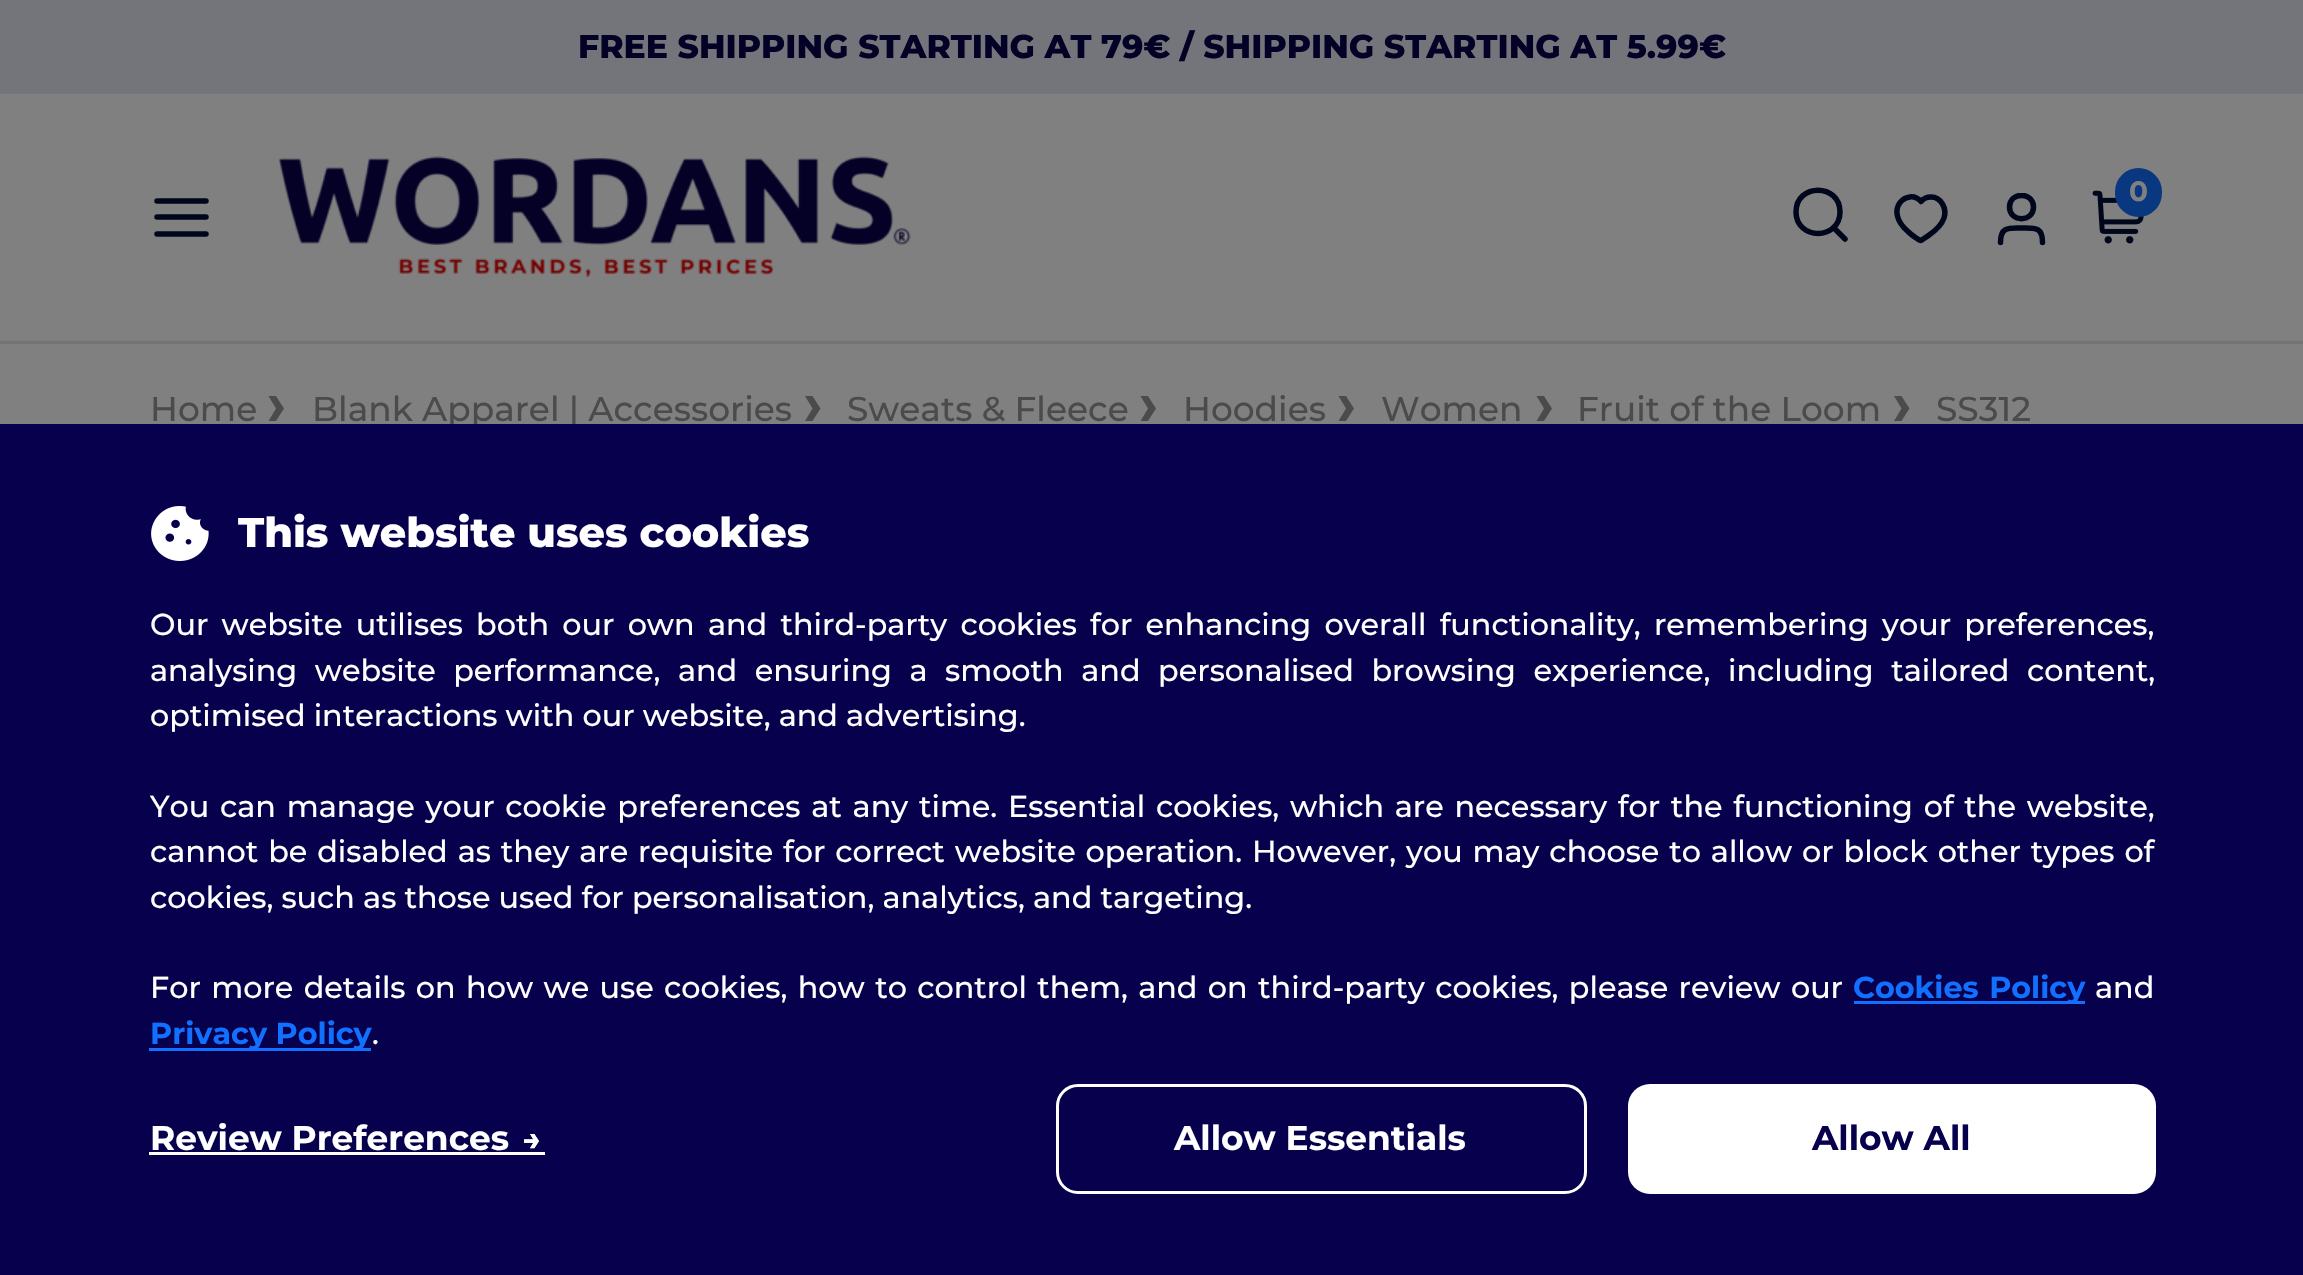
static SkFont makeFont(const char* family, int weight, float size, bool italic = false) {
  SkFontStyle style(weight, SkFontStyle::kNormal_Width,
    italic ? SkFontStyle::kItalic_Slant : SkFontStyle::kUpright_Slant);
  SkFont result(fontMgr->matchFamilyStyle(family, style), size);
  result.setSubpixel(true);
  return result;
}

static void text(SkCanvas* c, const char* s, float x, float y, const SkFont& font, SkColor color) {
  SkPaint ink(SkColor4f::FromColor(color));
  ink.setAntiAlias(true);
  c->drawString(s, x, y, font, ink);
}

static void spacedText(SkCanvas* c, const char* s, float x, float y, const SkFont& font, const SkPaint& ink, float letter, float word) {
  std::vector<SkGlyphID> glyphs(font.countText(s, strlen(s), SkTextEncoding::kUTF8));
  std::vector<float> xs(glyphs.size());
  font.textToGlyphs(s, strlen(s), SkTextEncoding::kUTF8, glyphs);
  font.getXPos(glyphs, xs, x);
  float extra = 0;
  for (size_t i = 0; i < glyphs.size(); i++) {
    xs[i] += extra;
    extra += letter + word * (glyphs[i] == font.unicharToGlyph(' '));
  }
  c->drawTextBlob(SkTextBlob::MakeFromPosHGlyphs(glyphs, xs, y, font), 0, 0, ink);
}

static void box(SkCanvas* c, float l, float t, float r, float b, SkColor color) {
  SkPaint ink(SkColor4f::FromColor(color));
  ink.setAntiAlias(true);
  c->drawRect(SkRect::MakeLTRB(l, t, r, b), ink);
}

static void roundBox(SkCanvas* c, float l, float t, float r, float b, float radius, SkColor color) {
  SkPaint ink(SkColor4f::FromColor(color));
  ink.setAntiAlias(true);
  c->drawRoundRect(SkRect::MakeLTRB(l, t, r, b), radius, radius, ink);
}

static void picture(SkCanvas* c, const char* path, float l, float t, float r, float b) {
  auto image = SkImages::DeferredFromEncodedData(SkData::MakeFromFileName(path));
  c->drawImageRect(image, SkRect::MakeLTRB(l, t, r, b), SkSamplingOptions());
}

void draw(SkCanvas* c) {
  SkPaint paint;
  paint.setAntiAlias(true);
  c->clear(0xff808080);
  box(c, 0, 0, 2303, 94, 0xff73757a);
  SkFont face1 = makeFont("Montserrat", 800, 33);
  text(c, "FREE SHIPPING STARTING AT 79€ / SHIPPING STARTING AT 5.99€", 578, 58, face1, 0xff040126);
  paint.setStyle(SkPaint::kStroke_Style);
  paint.setStrokeWidth(5.5f);
  paint.setStrokeCap(SkPaint::kRound_Cap);
  paint.setStrokeJoin(SkPaint::kRound_Join);
  paint.setColor(0xff00071d);
  c->drawPath(SkPathBuilder().moveTo(157, 217).lineTo(206, 217).moveTo(157, 201).lineTo(206, 201).moveTo(157, 234).lineTo(206, 234).detach(), paint);
  picture(c, "img_01.png", 279, 156, 911, 278);
  c->drawPath(SkPathBuilder().moveTo(1845, 239).lineTo(1833.5f, 227.5f).moveTo(1840, 212).cubicTo(1840, 240.5f, 1796, 240.5f, 1796, 212).cubicTo(1796, 183, 1840, 183, 1840, 212).close().detach(), paint);
  c->drawPath(SkPathBuilder().moveTo(1931, 197).cubicTo(1941.5f, 197, 1947, 209, 1944, 218).cubicTo(1941.5f, 225.5f, 1935, 231, 1928.5f, 235.5f).lineTo(1921, 240.5f).cubicTo(1918.5f, 240.5f, 1910, 233.5f, 1908.5f, 232).cubicTo(1881.5f, 209, 1908.5f, 187, 1921, 201.5f).cubicTo(1922.5f, 199.5f, 1926, 197, 1931, 197).close().detach(), paint);
  c->save();
  c->clipRect(SkRect::MakeLTRB(1997, 193, 2046, 248));
  c->drawPath(SkPathBuilder().moveTo(2042.5f, 242.5f).cubicTo(2042.5f, 226.5f, 2034.5f, 228, 2021.5f, 228).cubicTo(2009, 228, 2000.5f, 226.5f, 2000.5f, 242.5f).moveTo(2033.5f, 207).cubicTo(2033.5f, 222.5f, 2009.5f, 222.5f, 2009.5f, 207).cubicTo(2009.5f, 191.5f, 2033.5f, 191.5f, 2033.5f, 207).close().detach(), paint);
  c->restore();
  picture(c, "img_02.png", 2092, 190, 2146, 244);
  roundBox(c, 2115, 168, 2162, 217, 23.5f, 0xff093880);
  SkFont face2 = makeFont("Montserrat", 700, 28);
  text(c, "0", 2129, 201, face2, 0xff808080);
  box(c, 0, 341, 2303, 344, 0xff737476);
  SkFont face3 = makeFont("Montserrat", 500, 34.4f);
  text(c, "Home", 150, 421, face3, 0xff4b4b4b);
  paint.setStyle(SkPaint::kFill_Style);
  paint.setColor(0xff4b4b4b);
  c->drawPath(SkPathBuilder(SkPathFillType::kEvenOdd).moveTo(268.5f, 421).lineTo(276, 421).lineTo(284, 408.5f).lineTo(276, 396).lineTo(268.5f, 396).lineTo(276, 408.5f).close().detach(), paint);
  text(c, "Blank Apparel | Accessories", 312, 421, face3, 0xff4b4b4b);
  c->drawPath(SkPathBuilder(SkPathFillType::kEvenOdd).moveTo(805, 421).lineTo(812.5f, 421).lineTo(820.5f, 408.5f).lineTo(812.5f, 396).lineTo(805, 396).lineTo(812.5f, 408.5f).close().detach(), paint);
  text(c, "Sweats & Fleece", 847, 421, face3, 0xff4b4b4b);
  c->drawPath(SkPathBuilder(SkPathFillType::kEvenOdd).moveTo(1140.5f, 421).lineTo(1148, 421).lineTo(1156, 408.5f).lineTo(1148, 396).lineTo(1140.5f, 396).lineTo(1148, 408.5f).close().detach(), paint);
  text(c, "Hoodies", 1183, 421, face3, 0xff4b4b4b);
  c->drawPath(SkPathBuilder(SkPathFillType::kEvenOdd).moveTo(1338.5f, 421).lineTo(1346, 421).lineTo(1354, 408.5f).lineTo(1346, 396).lineTo(1338.5f, 396).lineTo(1346, 408.5f).close().detach(), paint);
  text(c, "Women", 1381, 421, face3, 0xff4b4b4b);
  c->drawPath(SkPathBuilder(SkPathFillType::kEvenOdd).moveTo(1536.5f, 421).lineTo(1544, 421).lineTo(1552, 408.5f).lineTo(1544, 396).lineTo(1536.5f, 396).lineTo(1544, 408.5f).close().detach(), paint);
  text(c, "Fruit of the Loom", 1577, 421, face3, 0xff4b4b4b);
  c->drawPath(SkPathBuilder(SkPathFillType::kEvenOdd).moveTo(1894, 421).lineTo(1901.5f, 421).lineTo(1909.5f, 408.5f).lineTo(1901.5f, 396).lineTo(1894, 396).lineTo(1901.5f, 408.5f).close().detach(), paint);
  text(c, "SS312", 1936, 421, face3, 0xff4b4b4b);
  box(c, 0, 424, 2303, 1275, 0xff07014d);
  picture(c, "img_03.png", 151, 506, 209, 561);
  SkFont face4 = makeFont("Montserrat", 800, 41.25f);
  text(c, "This website uses cookies", 238, 547, face4, 0xffffffff);
  SkFont face5 = makeFont("Montserrat", 500, 30.25f);
  paint.setColor(0xffffffff);
  spacedText(c, "Our website utilises both our own and third-party cookies for enhancing overall functionality, remembering your preferences,", 150, 635, face5, paint, 0, 5.1f);
  spacedText(c, "analysing website performance, and ensuring a smooth and personalised browsing experience, including tailored content,", 150, 681, face5, paint, 0, 9.4f);
  text(c, "optimised interactions with our website, and advertising.", 150, 726, face5, 0xffffffff);
  spacedText(c, "You can manage your cookie preferences at any time. Essential cookies, which are necessary for the functioning of the website,", 150, 817, face5, paint, 0, 2.6f);
  spacedText(c, "cannot be disabled as they are requisite for correct website operation. However, you may choose to allow or block other types of", 150, 862, face5, paint, 0, 1.75f);
  text(c, "cookies, such as those used for personalisation, analytics, and targeting.", 150, 908, face5, 0xffffffff);
  spacedText(c, "For more details on how we use cookies, how to control them, and on third-party cookies, please review our", 150, 998, face5, paint, 0, 2.25f);
  box(c, 1854, 1001, 2085, 1004, 0xff1170ff);
  SkFont face6 = makeFont("Montserrat", 700, 30.25f);
  paint.setColor(0xff1170ff);
  spacedText(c, "Cookies Policy", 1853, 998, face6, paint, 0, 2);
  text(c, "and", 2095, 998, face5, 0xffffffff);
  box(c, 149, 1048, 371, 1051, 0xff1170ff);
  text(c, "Privacy Policy", 150, 1044, face6, 0xff1170ff);
  text(c, ".", 372, 1044, face5, 0xffffffff);
  SkFont face7 = makeFont("Montserrat", 700, 34.4f);
  text(c, "Review Preferences", 150, 1150, face7, 0xffffffff);
  picture(c, "img_04.png", 524, 1134, 539, 1149);
  box(c, 149, 1152, 545, 1155, 0xffffffff);
  paint.setStyle(SkPaint::kStroke_Style);
  paint.setStrokeWidth(3);
  paint.setStrokeCap(SkPaint::kButt_Cap);
  paint.setStrokeJoin(SkPaint::kMiter_Join);
  paint.setColor(0xffffffff);
  c->drawRoundRect(SkRect::MakeLTRB(1057.5f, 1085.5f, 1585.5f, 1192.5f), 20.5f, 20.5f, paint);
  text(c, "Allow Essentials", 1174, 1150, face7, 0xffffffff);
  roundBox(c, 1628, 1084, 2156, 1194, 22, 0xffffffff);
  text(c, "Allow All", 1812, 1150, face7, 0xff07014d);
}
